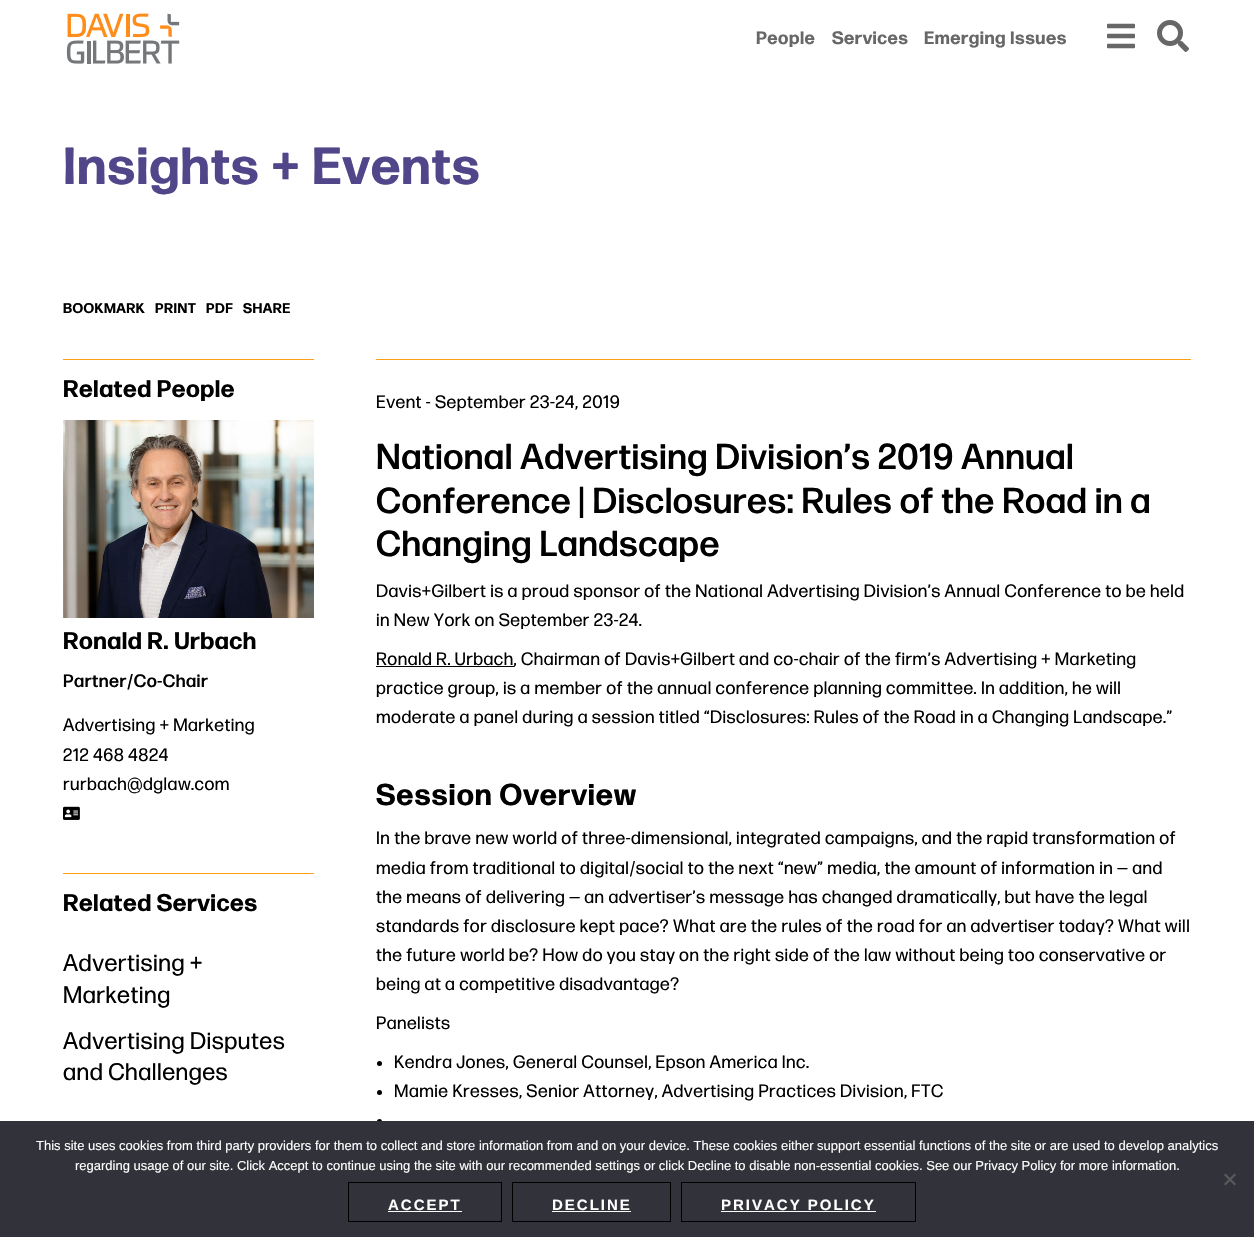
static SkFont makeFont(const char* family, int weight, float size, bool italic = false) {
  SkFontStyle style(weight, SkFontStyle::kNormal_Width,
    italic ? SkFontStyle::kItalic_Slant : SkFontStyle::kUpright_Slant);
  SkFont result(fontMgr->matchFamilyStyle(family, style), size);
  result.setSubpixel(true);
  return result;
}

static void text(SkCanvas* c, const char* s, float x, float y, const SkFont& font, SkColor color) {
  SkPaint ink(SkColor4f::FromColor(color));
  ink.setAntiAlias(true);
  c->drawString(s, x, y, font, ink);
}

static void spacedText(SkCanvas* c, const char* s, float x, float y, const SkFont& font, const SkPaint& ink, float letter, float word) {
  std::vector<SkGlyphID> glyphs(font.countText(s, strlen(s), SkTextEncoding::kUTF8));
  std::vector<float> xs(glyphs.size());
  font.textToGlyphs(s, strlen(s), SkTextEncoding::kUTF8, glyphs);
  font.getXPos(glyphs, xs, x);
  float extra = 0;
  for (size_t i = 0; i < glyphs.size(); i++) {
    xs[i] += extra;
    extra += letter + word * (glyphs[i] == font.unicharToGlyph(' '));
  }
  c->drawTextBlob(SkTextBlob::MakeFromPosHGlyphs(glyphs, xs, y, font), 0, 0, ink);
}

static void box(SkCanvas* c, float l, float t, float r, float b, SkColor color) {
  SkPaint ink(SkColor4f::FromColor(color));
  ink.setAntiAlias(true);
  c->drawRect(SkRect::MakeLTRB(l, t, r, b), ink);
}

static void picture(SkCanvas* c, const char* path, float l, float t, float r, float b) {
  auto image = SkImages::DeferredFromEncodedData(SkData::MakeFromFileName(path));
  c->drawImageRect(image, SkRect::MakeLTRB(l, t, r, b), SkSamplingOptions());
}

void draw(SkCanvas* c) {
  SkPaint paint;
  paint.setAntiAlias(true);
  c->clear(0xffffffff);
  picture(c, "img_01.png", 66, 13, 180, 64);
  SkFont face1 = makeFont("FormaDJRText", 700, 18);
  paint.setColor(0xff676767);
  spacedText(c, "People", 756, 44, face1, paint, 0.5f, 0);
  spacedText(c, "Services", 832, 44, face1, paint, 0.5f, 0);
  spacedText(c, "Emerging Issues", 924, 44, face1, paint, 0.5f, 0);
  picture(c, "img_02.png", 1107, 23, 1135, 49);
  picture(c, "img_03.png", 1157, 20, 1189, 52);
  SkFont face2 = makeFont("FormaDJRText", 700, 52);
  paint.setColor(0xff514689);
  spacedText(c, "Insights + Events", 63, 184, face2, paint, 1, 0);
  SkFont face3 = makeFont("FormaDJRText", 700, 14);
  paint.setColor(0xff000000);
  spacedText(c, "BOOKMARK", 63, 313, face3, paint, 0.5f, 0);
  spacedText(c, "PRINT", 155, 313, face3, paint, 0.5f, 0);
  spacedText(c, "PDF", 206, 313, face3, paint, 0.5f, 0);
  spacedText(c, "SHARE", 243, 313, face3, paint, 0.5f, 0);
  box(c, 63, 359, 314, 360, 0xffff9e1b);
  SkFont face4 = makeFont("FormaDJRText", 700, 24);
  spacedText(c, "Related People", 63, 397, face4, paint, 0.5f, 0);
  picture(c, "img_04.png", 63, 420, 314, 618);
  spacedText(c, "Ronald R. Urbach", 63, 649, face4, paint, 0.5f, 0);
  SkFont face5 = makeFont("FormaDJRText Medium", 500, 18);
  spacedText(c, "Partner/Co-Chair", 63, 687, face5, paint, 0.5f, 0);
  SkFont face6 = makeFont("FormaDJRText", 400, 18);
  spacedText(c, "Advertising + Marketing", 63, 731, face6, paint, 0.5f, 0);
  spacedText(c, "212 468 4824", 63, 761, face6, paint, 0.5f, 0);
  spacedText(c, "rurbach@dglaw.com", 63, 790, face6, paint, 0.5f, 0);
  picture(c, "img_05.png", 63, 806, 80, 820);
  box(c, 63, 873, 314, 874, 0xffff9e1b);
  spacedText(c, "Related Services", 63, 911, face4, paint, 0.5f, 0);
  SkFont face7 = makeFont("FormaDJRText", 400, 24);
  spacedText(c, "Advertising +", 63, 971, face7, paint, 0.5f, 0);
  spacedText(c, "Marketing", 63, 1003, face7, paint, 0.5f, 0);
  spacedText(c, "Advertising Disputes", 63, 1049, face7, paint, 0.5f, 0);
  spacedText(c, "and Challenges", 63, 1080, face7, paint, 0.5f, 0);
  box(c, 376, 359, 1191, 360, 0xffff9e1b);
  spacedText(c, "Event - September 23-24, 2019", 376, 408, face6, paint, 0.5f, 0);
  SkFont face8 = makeFont("FormaDJRText Medium", 500, 36);
  spacedText(c, "National Advertising Division’s 2019 Annual", 376, 469, face8, paint, 0.5f, 0);
  spacedText(c, "Conference | Disclosures: Rules of the Road in a", 376, 513, face8, paint, 0.5f, 0);
  spacedText(c, "Changing Landscape", 376, 556, face8, paint, 0.5f, 0);
  spacedText(c, "Davis+Gilbert is a proud sponsor of the National Advertising Division’s Annual Conference to be held", 376, 597, face6, paint, 0.5f, 0);
  spacedText(c, "in New York on September 23-24.", 376, 626, face6, paint, 0.5f, 0);
  box(c, 376, 666, 514, 667, 0xff000000);
  spacedText(c, "Ronald R. Urbach, Chairman of Davis+Gilbert and co-chair of the firm’s Advertising + Marketing", 376, 665, face6, paint, 0.5f, 0);
  spacedText(c, "practice group, is a member of the annual conference planning committee. In addition, he will", 376, 694, face6, paint, 0.5f, 0);
  spacedText(c, "moderate a panel during a session titled “Disclosures: Rules of the Road in a Changing Landscape.”", 376, 723, face6, paint, 0.5f, 0);
  SkFont face9 = makeFont("FormaDJRText", 700, 30);
  spacedText(c, "Session Overview", 376, 805, face9, paint, 1, 0);
  spacedText(c, "In the brave new world of three-dimensional, integrated campaigns, and the rapid transformation of", 376, 844, face6, paint, 0.5f, 0);
  spacedText(c, "media from traditional to digital/social to the next “new” media, the amount of information in — and", 376, 874, face6, paint, 0.5f, 0);
  spacedText(c, "the means of delivering — an advertiser’s message has changed dramatically, but have the legal", 376, 903, face6, paint, 0.5f, 0);
  spacedText(c, "standards for disclosure kept pace? What are the rules of the road for an advertiser today? What will", 376, 932, face6, paint, 0.5f, 0);
  spacedText(c, "the future world be? How do you stay on the right side of the law without being too conservative or", 376, 961, face6, paint, 0.5f, 0);
  spacedText(c, "being at a competitive disadvantage?", 376, 990, face6, paint, 0.5f, 0);
  spacedText(c, "Panelists", 376, 1029, face6, paint, 0.5f, 0);
  c->drawCircle(379.5f, 1063.5f, 2.5f, paint);
  spacedText(c, "Kendra Jones, General Counsel, Epson America Inc.", 394, 1068, face6, paint, 0.5f, 0);
  c->drawCircle(379.5f, 1092.5f, 2.5f, paint);
  spacedText(c, "Mamie Kresses, Senior Attorney, Advertising Practices Division, FTC", 394, 1097, face6, paint, 0.5f, 0);
  c->drawCircle(379.5f, 1121.5f, 2.5f, paint);
  box(c, 0, 1121, 1254, 1237, 0xff32323a);
  SkFont face10 = makeFont("Liberation Sans", 400, 13);
  text(c, "This site uses cookies from third party providers for them to collect and store information from and on your device. These cookies either support essential functions of the site or are used to develop analytics", 36, 1150, face10, 0xffffffff);
  text(c, "regarding usage of our site. Click Accept to continue using the site with our recommended settings or click Decline to disable non-essential cookies. See our Privacy Policy for more information.", 75, 1170, face10, 0xffffffff);
  paint.setColor(0xff59595d);
  c->drawPath(SkPathBuilder().moveTo(1234.5f, 1173.5f).lineTo(1236, 1175).lineTo(1225.5f, 1185.5f).lineTo(1224, 1184).close().detach(), paint);
  c->drawPath(SkPathBuilder().moveTo(1224, 1175).lineTo(1225.5f, 1173.5f).lineTo(1236, 1184).lineTo(1234.5f, 1185.5f).close().detach(), paint);
  paint.setStyle(SkPaint::kStroke_Style);
  paint.setStrokeWidth(1);
  paint.setColor(0xff000000);
  c->drawRect(SkRect::MakeLTRB(348.5f, 1182.5f, 501.5f, 1221.5f), paint);
  SkFont face11 = makeFont("Liberation Sans", 700, 15);
  paint.setStyle(SkPaint::kFill_Style);
  paint.setColor(0xffffffff);
  spacedText(c, "ACCEPT", 388, 1210, face11, paint, 2, 0);
  box(c, 388, 1211, 462, 1212, 0xffffffff);
  paint.setStyle(SkPaint::kStroke_Style);
  paint.setColor(0xff000000);
  c->drawRect(SkRect::MakeLTRB(512.5f, 1182.5f, 670.5f, 1221.5f), paint);
  paint.setStyle(SkPaint::kFill_Style);
  paint.setColor(0xffffffff);
  spacedText(c, "DECLINE", 552, 1210, face11, paint, 2, 0);
  box(c, 552, 1211, 631, 1212, 0xffffffff);
  paint.setStyle(SkPaint::kStroke_Style);
  paint.setColor(0xff000000);
  c->drawRect(SkRect::MakeLTRB(681.5f, 1182.5f, 915.5f, 1221.5f), paint);
  paint.setStyle(SkPaint::kFill_Style);
  paint.setColor(0xffffffff);
  spacedText(c, "PRIVACY POLICY", 721, 1210, face11, paint, 2, 0);
  box(c, 721, 1211, 876, 1212, 0xffffffff);
}
